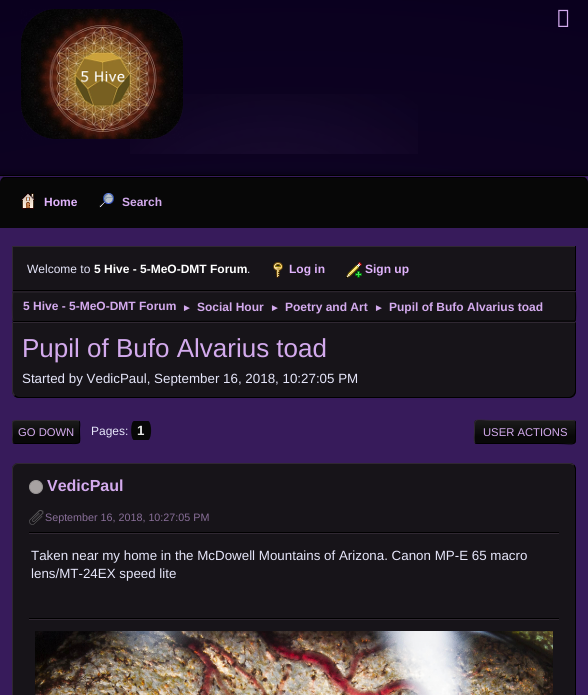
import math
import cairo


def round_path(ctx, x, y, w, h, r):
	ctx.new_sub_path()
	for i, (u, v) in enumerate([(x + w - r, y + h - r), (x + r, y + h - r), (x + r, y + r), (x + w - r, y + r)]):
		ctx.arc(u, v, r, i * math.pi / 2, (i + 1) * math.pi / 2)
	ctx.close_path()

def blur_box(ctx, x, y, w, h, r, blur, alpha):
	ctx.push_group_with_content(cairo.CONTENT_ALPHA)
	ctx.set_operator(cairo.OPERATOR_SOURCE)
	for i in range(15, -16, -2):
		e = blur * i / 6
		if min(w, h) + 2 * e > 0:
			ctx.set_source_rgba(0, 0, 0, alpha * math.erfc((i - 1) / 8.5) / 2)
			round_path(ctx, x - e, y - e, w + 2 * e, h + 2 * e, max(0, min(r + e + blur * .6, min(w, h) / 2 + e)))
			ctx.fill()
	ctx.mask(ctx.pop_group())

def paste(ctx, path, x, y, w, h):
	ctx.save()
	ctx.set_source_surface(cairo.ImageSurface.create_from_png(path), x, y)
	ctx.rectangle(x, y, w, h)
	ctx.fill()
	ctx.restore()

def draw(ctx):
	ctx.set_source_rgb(1, 1, 1)
	ctx.paint()
	gradient = cairo.RadialGradient(294, 1689, 0, 294, 1689, 1714)
	gradient.add_color_stop_rgba(0, 0.153, 0.09, 0.243, 1)
	gradient.add_color_stop_rgba(1, 0.039, 0, 0.118, 1)
	ctx.set_source(gradient)
	ctx.rectangle(0, 0, 588, 175)
	ctx.fill()
	paste(ctx, 'media/1.png', 130, 94, 288, 60)
	paste(ctx, 'media/2.png', 21, 9, 162, 131)
	paste(ctx, 'media/3.png', 558, 9, 11, 18)
	ctx.set_source_rgb(0, 0, 0)
	blur_box(ctx, -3, 172, 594, 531, 0, 2.5, 0.3)
	ctx.set_source_rgb(0.216, 0.106, 0.357)
	ctx.rectangle(0, 176, 588, 519)
	ctx.fill()
	ctx.set_source_rgb(0, 0, 0)
	ctx.rectangle(0, 175, 588, 1)
	ctx.fill()
	ctx.set_source_rgb(0.031, 0.031, 0.031)
	ctx.new_path()
	ctx.move_to(7, 176)
	ctx.line_to(581, 176)
	ctx.curve_to(585, 176, 588, 179, 588, 183)
	ctx.line_to(588, 228)
	ctx.line_to(0, 228)
	ctx.line_to(0, 183)
	ctx.curve_to(0, 179, 3, 176, 7, 176)
	ctx.close_path()
	ctx.fill()
	ctx.set_source_rgb(0, 0, 0)
	ctx.new_path()
	ctx.move_to(7, 178)
	ctx.line_to(581, 178)
	ctx.curve_to(585, 178, 588, 181, 588, 184)
	ctx.curve_to(588, 180, 585, 177, 581, 177)
	ctx.line_to(7, 177)
	ctx.curve_to(3, 177, 0, 180, 0, 184)
	ctx.curve_to(0, 181, 3, 178, 7, 178)
	ctx.close_path()
	ctx.fill()
	ctx.set_source_rgb(0.216, 0.106, 0.357)
	ctx.rectangle(4, 176, 581, 1)
	ctx.fill()
	paste(ctx, 'media/4.png', 20, 193, 16, 16)
	ctx.select_font_face('Liberation Sans', cairo.FONT_SLANT_NORMAL, cairo.FONT_WEIGHT_BOLD)
	ctx.set_font_size(12)
	ctx.set_source_rgb(0.878, 0.702, 0.988)
	ctx.move_to(44, 206)
	ctx.show_text('Home')
	paste(ctx, 'media/5.png', 99, 193, 15, 15)
	ctx.set_source_rgb(0.827, 0.667, 0.929)
	ctx.move_to(122, 206)
	ctx.show_text('Search')
	ctx.set_source_rgb(0.09, 0.082, 0.098)
	ctx.rectangle(13, 247, 562, 43)
	ctx.fill()
	ctx.set_source_rgb(0.188, 0.157, 0.196)
	ctx.rectangle(12, 246, 564, 1)
	ctx.fill()
	ctx.set_source_rgb(0, 0, 0)
	ctx.rectangle(575, 246, 1, 45)
	ctx.rectangle(12, 290, 564, 1)
	ctx.fill()
	ctx.set_source_rgb(0.188, 0.157, 0.196)
	ctx.rectangle(12, 246, 1, 45)
	ctx.fill()
	ctx.select_font_face('Liberation Sans')
	ctx.set_source_rgb(0.902, 0.902, 0.98)
	ctx.move_to(27, 273)
	ctx.show_text('Welcome to')
	ctx.select_font_face('Liberation Sans', cairo.FONT_SLANT_NORMAL, cairo.FONT_WEIGHT_BOLD)
	ctx.set_source_rgb(1, 1, 1)
	ctx.move_to(94, 273)
	ctx.show_text('5 Hive - 5-MeO-DMT Forum')
	ctx.select_font_face('Liberation Sans')
	ctx.set_source_rgb(0.902, 0.902, 0.98)
	ctx.move_to(247, 273)
	ctx.show_text('.')
	paste(ctx, 'media/6.png', 273, 262, 10, 16)
	ctx.select_font_face('Liberation Sans', cairo.FONT_SLANT_NORMAL, cairo.FONT_WEIGHT_BOLD)
	ctx.set_source_rgb(0.878, 0.702, 0.988)
	ctx.move_to(289, 273)
	ctx.show_text('Log in')
	paste(ctx, 'media/7.png', 346, 262, 16, 16)
	ctx.move_to(365, 273)
	ctx.show_text('Sign up')
	ctx.set_source_rgb(0.09, 0.082, 0.098)
	round_path(ctx, 12, 291, 564, 31, 2)
	ctx.fill()
	ctx.new_path()
	ctx.move_to(575, 292)
	ctx.curve_to(576, 293, 576, 320.5, 575, 321)
	ctx.line_to(14, 321.5)
	ctx.line_to(13, 321)
	ctx.set_source_rgb(0, 0, 0)
	ctx.set_line_width(1)
	ctx.stroke()
	ctx.new_path()
	ctx.move_to(13, 321)
	ctx.curve_to(12, 320, 12, 292.5, 13, 292)
	ctx.line_to(574, 291.5)
	ctx.line_to(575, 292)
	ctx.set_source_rgb(0.188, 0.157, 0.196)
	ctx.stroke()
	ctx.set_source_rgb(0.827, 0.667, 0.929)
	ctx.move_to(23, 310)
	ctx.show_text('5 Hive - 5-MeO-DMT Forum')
	ctx.select_font_face('Liberation Sans')
	ctx.set_font_size(10)
	ctx.move_to(182, 311)
	ctx.show_text('►')
	ctx.select_font_face('Liberation Sans', cairo.FONT_SLANT_NORMAL, cairo.FONT_WEIGHT_BOLD)
	ctx.set_font_size(12)
	ctx.move_to(197, 311)
	ctx.show_text('Social Hour')
	ctx.select_font_face('Liberation Sans')
	ctx.set_font_size(10)
	ctx.move_to(270, 311)
	ctx.show_text('►')
	ctx.select_font_face('Liberation Sans', cairo.FONT_SLANT_NORMAL, cairo.FONT_WEIGHT_BOLD)
	ctx.set_font_size(12)
	ctx.move_to(285, 311)
	ctx.show_text('Poetry and Art')
	ctx.select_font_face('Liberation Sans')
	ctx.set_font_size(10)
	ctx.move_to(374, 311)
	ctx.show_text('►')
	ctx.select_font_face('Liberation Sans', cairo.FONT_SLANT_NORMAL, cairo.FONT_WEIGHT_BOLD)
	ctx.set_font_size(12)
	ctx.move_to(389, 311)
	ctx.show_text('Pupil of Bufo Alvarius toad')
	ctx.set_source_rgb(0.09, 0.082, 0.098)
	ctx.new_path()
	ctx.move_to(12, 322)
	ctx.line_to(576, 322)
	ctx.line_to(576, 391)
	ctx.curve_to(576, 395, 573, 398, 569, 398)
	ctx.line_to(19, 398)
	ctx.curve_to(15, 398, 12, 395, 12, 391)
	ctx.close_path()
	ctx.fill()
	ctx.set_source_rgb(0.188, 0.157, 0.196)
	ctx.new_path()
	ctx.move_to(12, 322)
	ctx.line_to(13, 323)
	ctx.line_to(575, 323)
	ctx.line_to(576, 322)
	ctx.close_path()
	ctx.fill()
	ctx.set_source_rgb(0, 0, 0)
	ctx.new_path()
	ctx.move_to(576, 322)
	ctx.line_to(575, 323)
	ctx.line_to(575, 391)
	ctx.curve_to(575, 392, 574, 394, 573, 395)
	ctx.line_to(574, 396)
	ctx.curve_to(575, 395, 576, 393, 576, 391)
	ctx.close_path()
	ctx.fill()
	ctx.new_path()
	ctx.move_to(19, 398)
	ctx.line_to(569, 398)
	ctx.curve_to(571, 398, 573, 397, 574, 396)
	ctx.line_to(573, 395)
	ctx.curve_to(572, 396, 570, 397, 569, 397)
	ctx.line_to(19, 397)
	ctx.curve_to(18, 397, 16, 396, 15, 395)
	ctx.line_to(14, 396)
	ctx.curve_to(15, 397, 17, 398, 19, 398)
	ctx.close_path()
	ctx.fill()
	ctx.set_source_rgb(0.188, 0.157, 0.196)
	ctx.new_path()
	ctx.move_to(13, 323)
	ctx.line_to(12, 322)
	ctx.line_to(12, 391)
	ctx.curve_to(12, 393, 13, 395, 14, 396)
	ctx.line_to(15, 395)
	ctx.curve_to(14, 394, 13, 392, 13, 391)
	ctx.close_path()
	ctx.fill()
	ctx.select_font_face('Liberation Sans')
	ctx.set_font_size(26)
	ctx.set_source_rgb(0.827, 0.667, 0.929)
	ctx.move_to(22, 357)
	ctx.show_text('Pupil of Bufo Alvarius toad')
	ctx.set_font_size(13.35)
	ctx.set_source_rgb(0.902, 0.902, 0.98)
	ctx.move_to(22, 383)
	ctx.show_text('Started by VedicPaul, September 16, 2018, 10:27:05 PM')
	ctx.save()
	round_path(ctx, 12, 420, 68, 24, 3)
	ctx.clip()
	gradient = cairo.LinearGradient(46, 421, 46, 443)
	gradient.add_color_stop_rgba(0, 0.106, 0.106, 0.106, 1)
	gradient.add_color_stop_rgba(0.7, 0.031, 0.031, 0.031, 1)
	ctx.set_source(gradient)
	ctx.rectangle(12, 421, 68, 22)
	ctx.fill()
	ctx.restore()
	ctx.new_path()
	ctx.move_to(79, 421)
	ctx.curve_to(80.5, 423, 79.5, 427, 79.5, 429)
	ctx.curve_to(79.5, 445.5, 83, 443.5, 66.5, 443.5)
	ctx.line_to(15, 443.5)
	ctx.line_to(13, 443)
	ctx.set_source_rgb(0, 0, 0)
	ctx.stroke()
	ctx.save()
	ctx.rectangle(12, 413, 564, 38)
	ctx.clip()
	ctx.new_path()
	ctx.move_to(13, 443)
	ctx.curve_to(11.5, 441, 12.5, 437, 12.5, 435)
	ctx.curve_to(12.5, 418.5, 9, 420.5, 25.5, 420.5)
	ctx.line_to(77, 420.5)
	ctx.line_to(79, 421)
	ctx.set_source_rgb(0.188, 0.157, 0.196)
	ctx.stroke()
	ctx.restore()
	ctx.set_font_size(11.25)
	ctx.set_source_rgb(0.827, 0.667, 0.929)
	ctx.move_to(18, 436)
	ctx.show_text('GO DOWN')
	ctx.set_font_size(12)
	ctx.set_source_rgb(0.902, 0.902, 0.98)
	ctx.move_to(91, 435)
	ctx.show_text('Pages:')
	ctx.set_source_rgb(0.031, 0.031, 0.031)
	ctx.rectangle(137, 421, 8, 19)
	ctx.fill()
	ctx.select_font_face('Liberation Sans', cairo.FONT_SLANT_NORMAL, cairo.FONT_WEIGHT_BOLD)
	ctx.set_font_size(13.35)
	ctx.set_source_rgb(0.902, 0.902, 0.902)
	ctx.move_to(137, 435)
	ctx.show_text('1')
	ctx.set_source_rgb(0.031, 0.031, 0.031)
	ctx.new_path()
	ctx.move_to(134, 421)
	ctx.line_to(137, 421)
	ctx.line_to(137, 440)
	ctx.line_to(133.5, 440)
	ctx.curve_to(130, 437.5, 130.5, 421, 134, 421)
	ctx.close_path()
	ctx.fill()
	ctx.new_path()
	ctx.move_to(145, 421)
	ctx.line_to(148.5, 421)
	ctx.curve_to(152, 423.5, 152, 437.5, 148.5, 440)
	ctx.line_to(145, 440)
	ctx.close_path()
	ctx.fill()
	ctx.save()
	round_path(ctx, 474, 420, 102, 24, 3)
	ctx.clip()
	gradient = cairo.LinearGradient(525, 399, 525, 421)
	gradient.add_color_stop_rgba(0, 0.106, 0.106, 0.106, 1)
	gradient.add_color_stop_rgba(0.7, 0.031, 0.031, 0.031, 1)
	ctx.set_source(gradient)
	ctx.rectangle(474, 420, 102, 1)
	ctx.fill()
	gradient = cairo.LinearGradient(525, 421, 525, 443)
	gradient.add_color_stop_rgba(0, 0.106, 0.106, 0.106, 1)
	gradient.add_color_stop_rgba(0.7, 0.031, 0.031, 0.031, 1)
	ctx.set_source(gradient)
	ctx.rectangle(474, 421, 102, 22)
	ctx.fill()
	gradient = cairo.LinearGradient(525, 443, 525, 465)
	gradient.add_color_stop_rgba(0, 0.106, 0.106, 0.106, 1)
	gradient.add_color_stop_rgba(0.7, 0.031, 0.031, 0.031, 1)
	ctx.set_source(gradient)
	ctx.rectangle(474, 443, 102, 1)
	ctx.fill()
	ctx.restore()
	ctx.save()
	ctx.rectangle(12, 413, 564, 38)
	ctx.clip()
	ctx.new_path()
	ctx.move_to(575, 421)
	ctx.curve_to(576.5, 423, 575.5, 430, 575.5, 432)
	ctx.curve_to(575.5, 447.5, 576.5, 443.5, 557, 443.5)
	ctx.line_to(477, 443.5)
	ctx.line_to(475, 443)
	ctx.set_source_rgb(0, 0, 0)
	ctx.stroke()
	ctx.restore()
	ctx.new_path()
	ctx.move_to(475, 443)
	ctx.curve_to(473.5, 441, 474.5, 434, 474.5, 432)
	ctx.curve_to(474.5, 416.5, 473.5, 420.5, 493, 420.5)
	ctx.line_to(573, 420.5)
	ctx.line_to(575, 421)
	ctx.set_source_rgb(0.188, 0.157, 0.196)
	ctx.stroke()
	ctx.select_font_face('Liberation Sans')
	ctx.set_font_size(11.25)
	ctx.set_source_rgb(0.827, 0.667, 0.929)
	ctx.move_to(483, 436)
	ctx.show_text('USER ACTIONS')
	ctx.set_source_rgb(0.09, 0.082, 0.098)
	round_path(ctx, 12, 463, 564, 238, 6)
	ctx.fill()
	ctx.new_path()
	ctx.move_to(574, 465)
	ctx.line_to(575.5, 468.5)
	ctx.line_to(575.5, 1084)
	ctx.curve_to(575.5, 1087, 573, 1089.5, 570, 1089.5)
	ctx.line_to(17.5, 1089.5)
	ctx.line_to(14, 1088)
	ctx.set_source_rgb(0, 0, 0)
	ctx.stroke()
	ctx.new_path()
	ctx.move_to(14, 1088)
	ctx.line_to(12.5, 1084.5)
	ctx.line_to(12.5, 469)
	ctx.curve_to(12.5, 466, 15, 463.5, 18, 463.5)
	ctx.line_to(570.5, 463.5)
	ctx.line_to(574, 465)
	ctx.set_source_rgb(0.188, 0.157, 0.196)
	ctx.stroke()
	ctx.set_source_rgb(0.655, 0.635, 0.635)
	ctx.arc(36, 487, 6.5, 0, 2 * math.pi)
	ctx.fill_preserve()
	ctx.set_source_rgb(0.588, 0.573, 0.573)
	ctx.stroke()
	ctx.select_font_face('Liberation Sans', cairo.FONT_SLANT_NORMAL, cairo.FONT_WEIGHT_BOLD)
	ctx.set_font_size(16)
	ctx.set_source_rgb(0.827, 0.667, 0.929)
	ctx.move_to(47, 491)
	ctx.show_text('VedicPaul')
	paste(ctx, 'media/8.png', 29, 510, 15, 15)
	ctx.select_font_face('Liberation Sans')
	ctx.set_font_size(10.75)
	ctx.set_source_rgb(0.533, 0.431, 0.596)
	ctx.move_to(45, 521)
	ctx.show_text('September 16, 2018, 10:27:05 PM')
	ctx.set_source_rgb(0.188, 0.157, 0.196)
	ctx.rectangle(29, 533, 530, 1)
	ctx.fill()
	ctx.set_source_rgb(0, 0, 0)
	ctx.rectangle(29, 532, 530, 1)
	ctx.fill()
	ctx.set_font_size(13.35)
	ctx.set_source_rgb(0.902, 0.902, 0.98)
	ctx.move_to(31, 560)
	ctx.show_text('Taken near my home in the McDowell Mountains of Arizona. Canon MP-E 65 macro')
	ctx.move_to(31, 578)
	ctx.show_text('lens/MT-24EX speed lite')
	ctx.set_source_rgb(0.188, 0.157, 0.196)
	ctx.rectangle(29, 619, 530, 1)
	ctx.fill()
	ctx.set_source_rgb(0, 0, 0)
	ctx.rectangle(29, 618, 530, 1)
	ctx.fill()
	paste(ctx, 'media/9.png', 35, 631, 518, 64)


surface = cairo.ImageSurface(cairo.FORMAT_RGB24, 588, 695)
ctx = cairo.Context(surface)
options = cairo.FontOptions()
options.set_hint_metrics(cairo.HINT_METRICS_OFF)
options.set_hint_style(cairo.HINT_STYLE_NONE)
ctx.set_font_options(options)
ctx.set_miter_limit(4)
draw(ctx)
surface.write_to_png('image.png')
